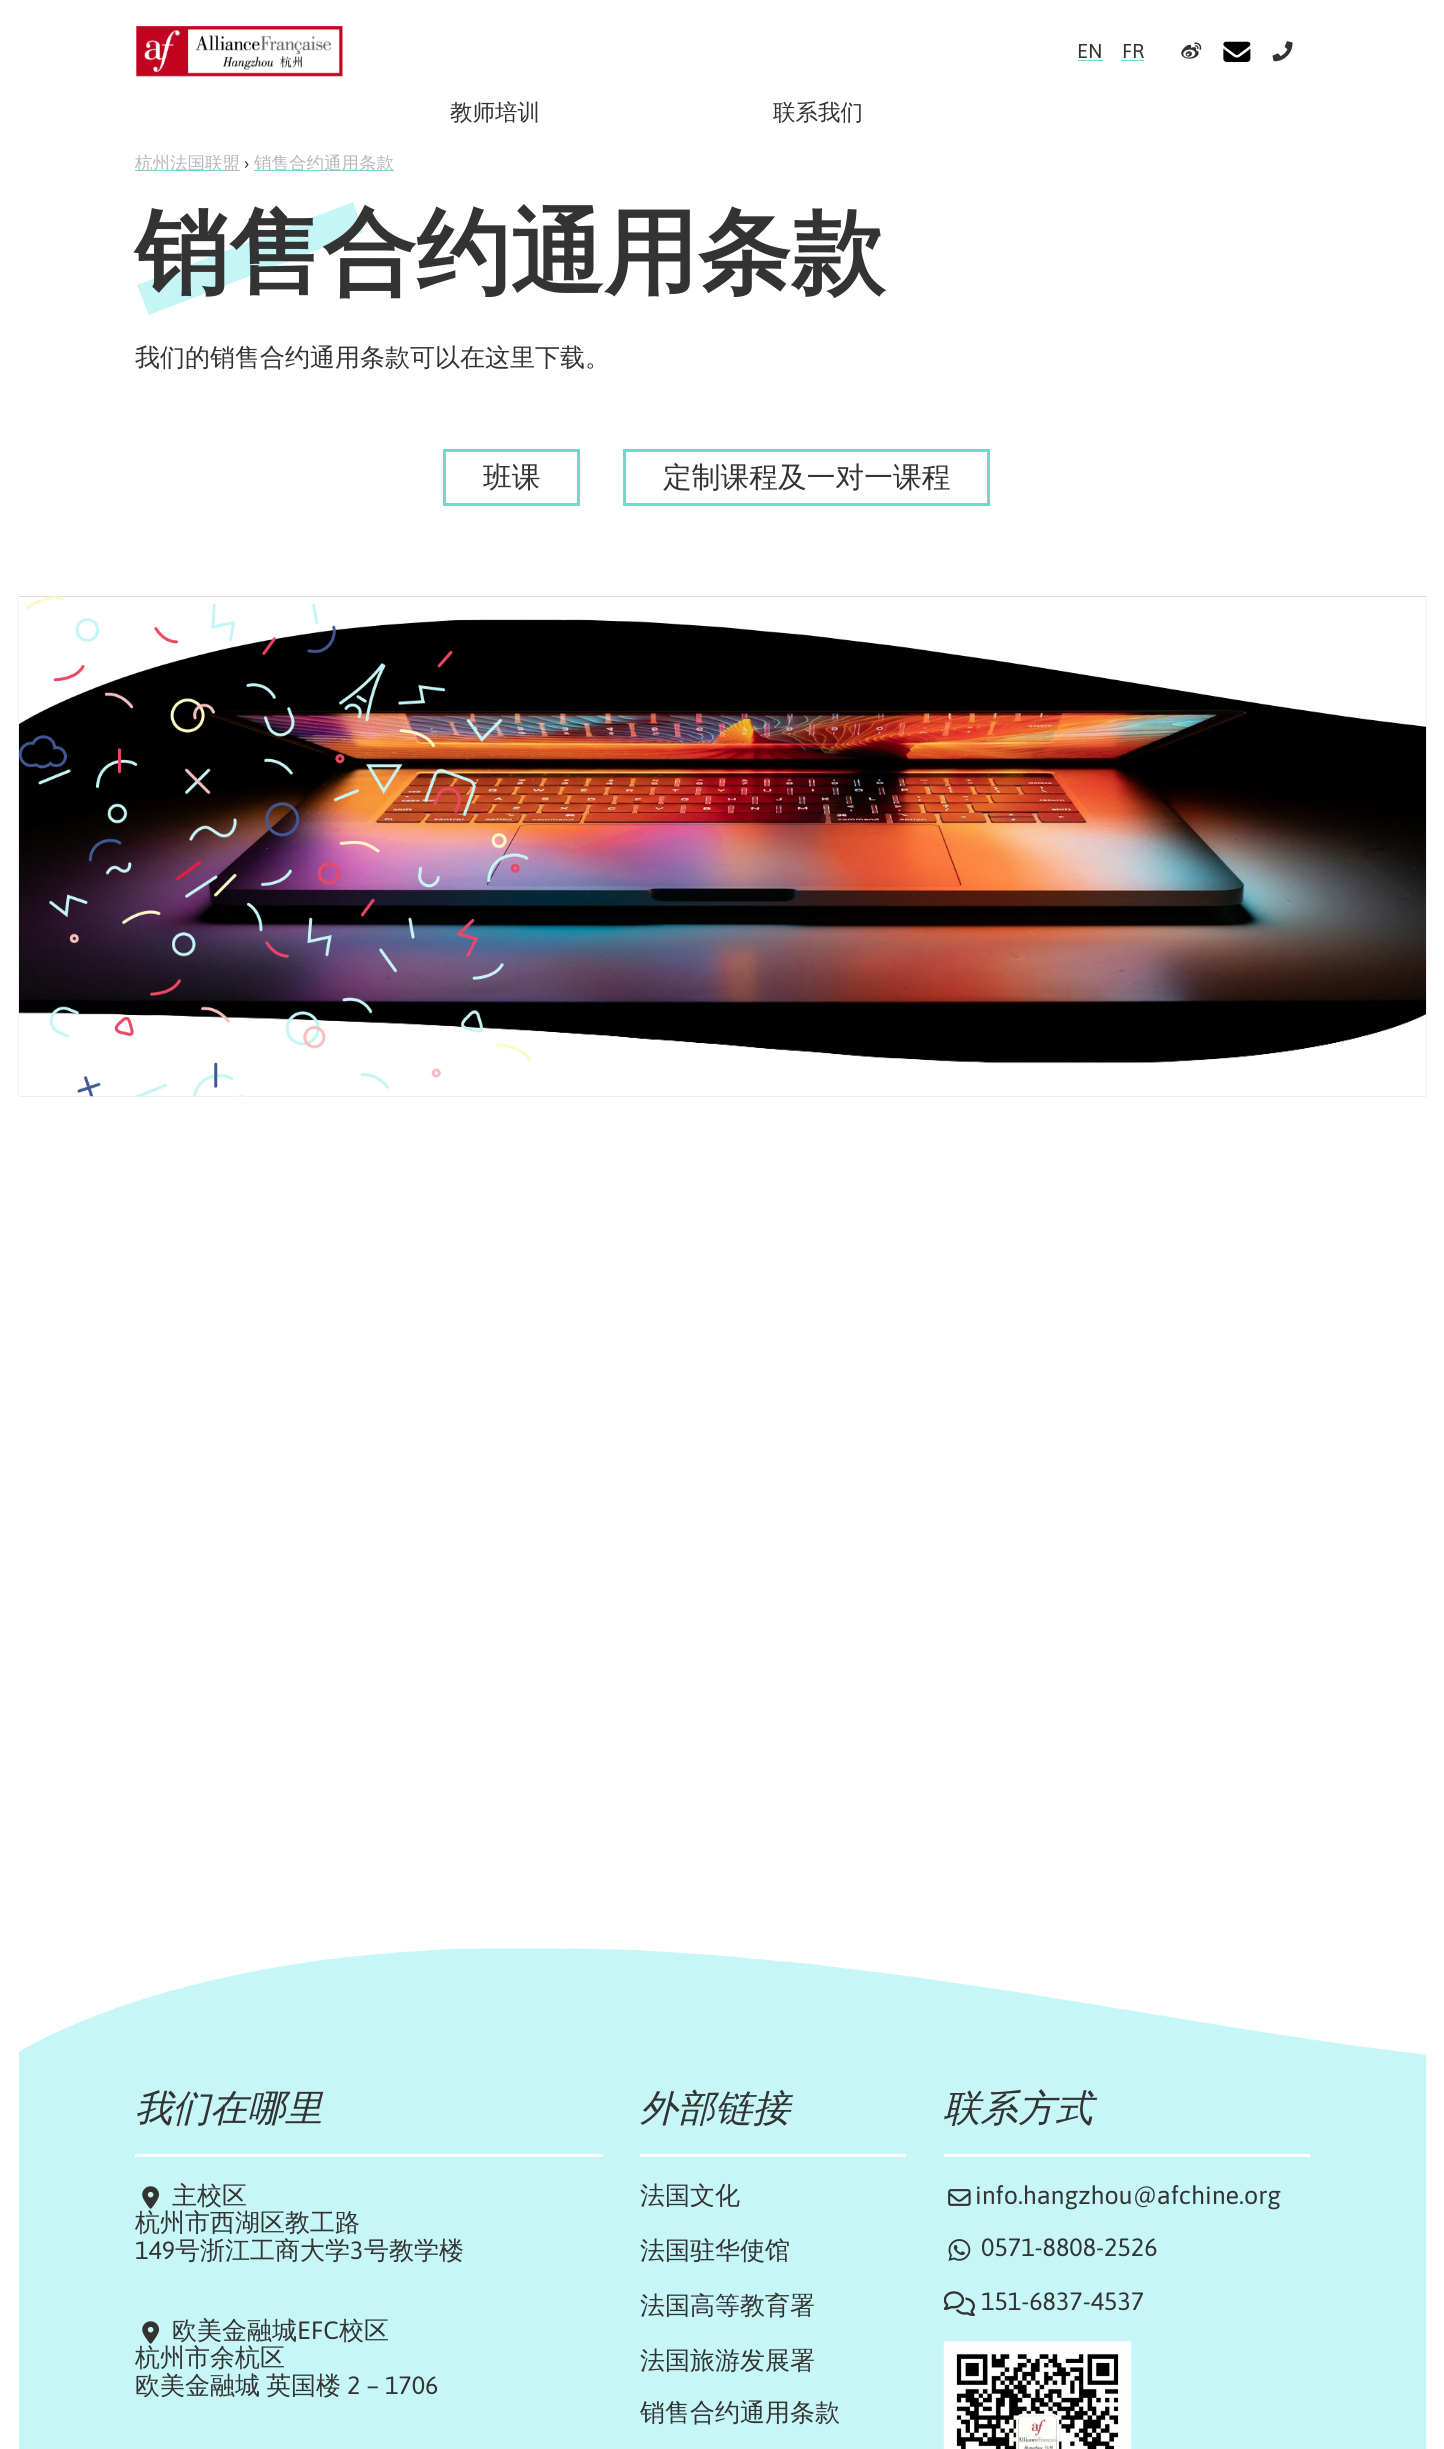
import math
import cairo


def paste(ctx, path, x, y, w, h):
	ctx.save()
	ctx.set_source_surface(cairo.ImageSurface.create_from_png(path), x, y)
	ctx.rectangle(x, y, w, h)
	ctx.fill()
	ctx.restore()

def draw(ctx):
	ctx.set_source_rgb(1, 1, 1)
	ctx.paint()
	paste(ctx, 'media/1.png', 136, 26, 207, 51)
	ctx.select_font_face('Asap')
	ctx.set_font_size(20)
	ctx.set_source_rgb(0.2, 0.2, 0.2)
	ctx.move_to(1077, 58)
	ctx.show_text('EN')
	ctx.set_source_rgb(0.459, 0.843, 0.8)
	ctx.rectangle(1078, 60, 25, 1)
	ctx.fill()
	ctx.set_source_rgb(0.2, 0.2, 0.2)
	ctx.move_to(1122, 58)
	ctx.show_text('FR')
	ctx.set_source_rgb(0.459, 0.843, 0.8)
	ctx.rectangle(1121, 60, 23, 1)
	ctx.fill()
	paste(ctx, 'media/2.png', 1181, 42, 21, 17)
	paste(ctx, 'media/3.png', 1223, 41, 28, 21)
	paste(ctx, 'media/4.png', 1272, 41, 21, 21)
	ctx.select_font_face('WenQuanYi Zen Hei Medium')
	ctx.set_font_size(22.5)
	ctx.set_source_rgb(0.2, 0.2, 0.2)
	ctx.move_to(450, 120)
	ctx.show_text('教师培训')
	ctx.move_to(773, 120)
	ctx.show_text('联系我们')
	ctx.set_source_rgb(0.459, 0.843, 0.8)
	ctx.rectangle(135, 170, 105, 1)
	ctx.fill()
	ctx.set_font_size(17.5)
	ctx.set_source_rgb(0.718, 0.718, 0.718)
	ctx.move_to(135, 169)
	ctx.show_text('杭州法国联盟')
	ctx.select_font_face('Asap')
	ctx.set_source_rgb(0.2, 0.2, 0.2)
	ctx.move_to(244, 169)
	ctx.show_text('›')
	ctx.set_source_rgb(0.459, 0.843, 0.8)
	ctx.rectangle(254, 170, 140, 1)
	ctx.fill()
	ctx.select_font_face('WenQuanYi Zen Hei Medium')
	ctx.set_source_rgb(0.718, 0.718, 0.718)
	ctx.move_to(254, 169)
	ctx.show_text('销售合约通用条款')
	ctx.set_source_rgb(0.769, 0.961, 0.961)
	ctx.new_path()
	ctx.move_to(137, 285)
	ctx.line_to(353, 202)
	ctx.line_to(364, 232)
	ctx.line_to(149, 315)
	ctx.close_path()
	ctx.fill()
	ctx.select_font_face('WenQuanYi Zen Hei', cairo.FONT_SLANT_NORMAL, cairo.FONT_WEIGHT_BOLD)
	ctx.set_font_size(93.75)
	ctx.set_source_rgb(0.2, 0.2, 0.2)
	ctx.move_to(135, 285)
	ctx.show_text('销售合约通用条款')
	ctx.select_font_face('WenQuanYi Zen Hei Medium')
	ctx.set_font_size(25)
	ctx.move_to(135, 366)
	ctx.show_text('我们的销售合约通用条款可以在这里下载。')
	ctx.rectangle(444.5, 450.5, 134, 54)
	ctx.set_source_rgb(0.459, 0.843, 0.8)
	ctx.set_line_width(3)
	ctx.stroke()
	ctx.set_font_size(28.75)
	ctx.set_source_rgb(0.2, 0.2, 0.2)
	ctx.move_to(483, 487)
	ctx.show_text('班课')
	ctx.rectangle(624.5, 450.5, 364, 54)
	ctx.set_source_rgb(0.459, 0.843, 0.8)
	ctx.stroke()
	ctx.set_source_rgb(0.2, 0.2, 0.2)
	ctx.move_to(663, 487)
	ctx.show_text('定制课程及一对一课程')
	paste(ctx, 'media/5.png', 18, 596, 1409, 501)
	paste(ctx, 'media/6.png', 18, 596, 1409, 131)
	paste(ctx, 'media/8.png', 18, 1012, 1409, 84)
	paste(ctx, 'media/7.png', 18, 596, 514, 501)
	ctx.set_source_rgb(0.776, 0.961, 0.961)
	ctx.rectangle(19, 1948, 1407, 501)
	ctx.fill()
	paste(ctx, 'media/9.png', 19, 1925, 1407, 130)
	ctx.select_font_face('WenQuanYi Zen Hei Medium', cairo.FONT_SLANT_ITALIC)
	ctx.set_font_size(37.5)
	ctx.set_source_rgb(0.2, 0.2, 0.2)
	ctx.move_to(135, 2121)
	ctx.show_text('我们在哪里')
	ctx.set_source_rgb(1, 1, 1)
	ctx.rectangle(135, 2154, 468, 3)
	ctx.fill()
	paste(ctx, 'media/10.png', 142, 2186, 18, 23)
	ctx.select_font_face('WenQuanYi Zen Hei Medium')
	ctx.set_font_size(25)
	ctx.set_source_rgb(0.2, 0.2, 0.2)
	ctx.move_to(172, 2204)
	ctx.show_text('主校区')
	ctx.move_to(135, 2231)
	ctx.show_text('杭州市西湖区教工路')
	ctx.select_font_face('Asap')
	ctx.move_to(135, 2259)
	ctx.show_text('149')
	ctx.select_font_face('WenQuanYi Zen Hei Medium')
	ctx.move_to(175, 2259)
	ctx.show_text('号浙江工商大学')
	ctx.select_font_face('Asap')
	ctx.move_to(350, 2259)
	ctx.show_text('3')
	ctx.select_font_face('WenQuanYi Zen Hei Medium')
	ctx.move_to(364, 2259)
	ctx.show_text('号教学楼')
	paste(ctx, 'media/10.png', 142, 2321, 18, 23)
	ctx.move_to(172, 2339)
	ctx.show_text('欧美金融城')
	ctx.select_font_face('Asap')
	ctx.move_to(297, 2339)
	ctx.show_text('EFC')
	ctx.select_font_face('WenQuanYi Zen Hei Medium')
	for x, y, s in [
		(339, 2339, '校区'),
		(135, 2366, '杭州市余杭区'),
		(135, 2394, '欧美金融城'),
		(266, 2394, '英国楼'),
	]:
		ctx.move_to(x, y)
		ctx.show_text(s)
	ctx.select_font_face('Asap')
	ctx.move_to(347, 2394)
	ctx.show_text('2 – 1706')
	ctx.select_font_face('WenQuanYi Zen Hei Medium', cairo.FONT_SLANT_ITALIC)
	ctx.set_font_size(37.5)
	ctx.move_to(640, 2121)
	ctx.show_text('外部链接')
	ctx.set_source_rgb(1, 1, 1)
	ctx.rectangle(640, 2154, 266, 3)
	ctx.fill()
	ctx.select_font_face('WenQuanYi Zen Hei Medium')
	ctx.set_font_size(25)
	ctx.set_source_rgb(0.2, 0.2, 0.2)
	for x, y, s in [
		(640, 2204, '法国文化'),
		(640, 2259, '法国驻华使馆'),
		(640, 2314, '法国高等教育署'),
		(640, 2369, '法国旅游发展署'),
		(640, 2421, '销售合约通用条款'),
	]:
		ctx.move_to(x, y)
		ctx.show_text(s)
	ctx.select_font_face('WenQuanYi Zen Hei Medium', cairo.FONT_SLANT_ITALIC)
	ctx.set_font_size(37.5)
	ctx.move_to(943, 2121)
	ctx.show_text('联系方式')
	ctx.set_source_rgb(1, 1, 1)
	ctx.rectangle(944, 2154, 366, 3)
	ctx.fill()
	paste(ctx, 'media/11.png', 948, 2189, 23, 17)
	ctx.select_font_face('Asap')
	ctx.set_font_size(25)
	ctx.set_source_rgb(0.2, 0.2, 0.2)
	ctx.move_to(975, 2204)
	ctx.show_text('info.hangzhou@afchine.org')
	paste(ctx, 'media/12.png', 948, 2239, 23, 22)
	ctx.move_to(981, 2256)
	ctx.show_text('0571-8808-2526')
	paste(ctx, 'media/13.png', 944, 2291, 31, 25)
	ctx.move_to(981, 2310)
	ctx.show_text('151-6837-4537')
	paste(ctx, 'media/14.png', 943, 2341, 189, 108)


surface = cairo.ImageSurface(cairo.FORMAT_RGB24, 1444, 2449)
ctx = cairo.Context(surface)
options = cairo.FontOptions()
options.set_hint_metrics(cairo.HINT_METRICS_OFF)
options.set_hint_style(cairo.HINT_STYLE_NONE)
ctx.set_font_options(options)
ctx.set_miter_limit(4)
draw(ctx)
surface.write_to_png('image.png')
